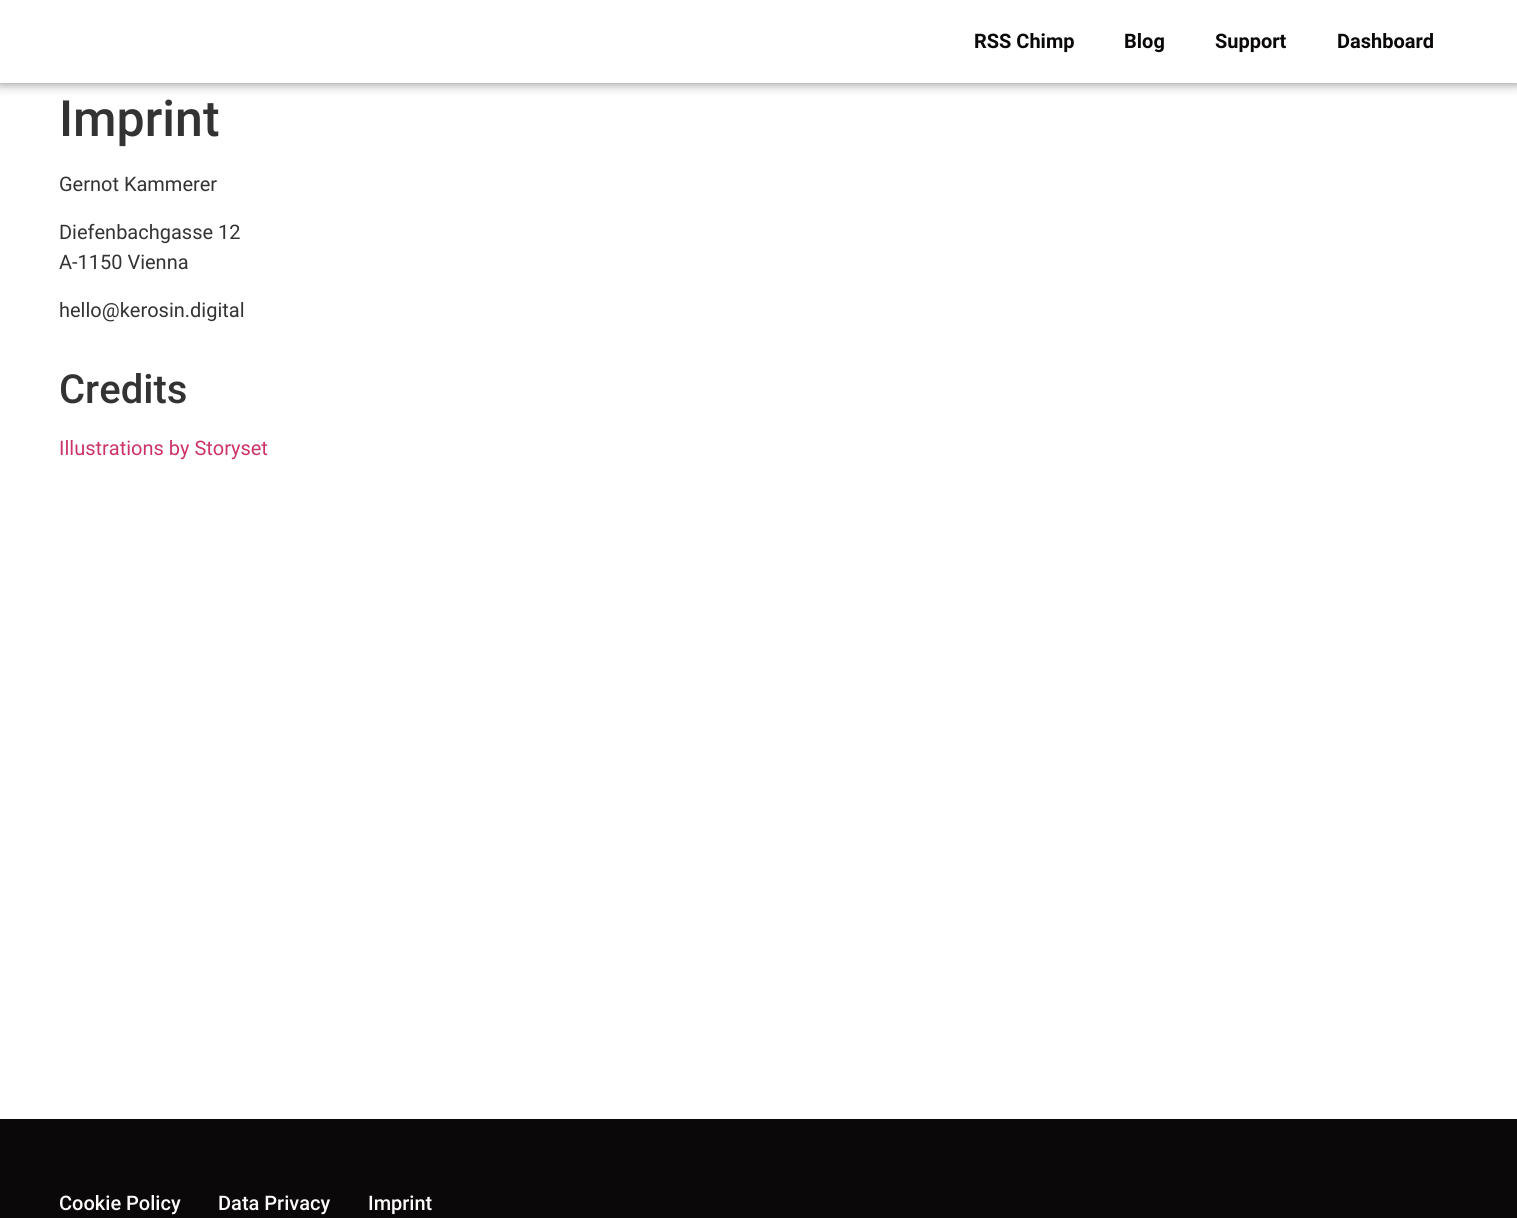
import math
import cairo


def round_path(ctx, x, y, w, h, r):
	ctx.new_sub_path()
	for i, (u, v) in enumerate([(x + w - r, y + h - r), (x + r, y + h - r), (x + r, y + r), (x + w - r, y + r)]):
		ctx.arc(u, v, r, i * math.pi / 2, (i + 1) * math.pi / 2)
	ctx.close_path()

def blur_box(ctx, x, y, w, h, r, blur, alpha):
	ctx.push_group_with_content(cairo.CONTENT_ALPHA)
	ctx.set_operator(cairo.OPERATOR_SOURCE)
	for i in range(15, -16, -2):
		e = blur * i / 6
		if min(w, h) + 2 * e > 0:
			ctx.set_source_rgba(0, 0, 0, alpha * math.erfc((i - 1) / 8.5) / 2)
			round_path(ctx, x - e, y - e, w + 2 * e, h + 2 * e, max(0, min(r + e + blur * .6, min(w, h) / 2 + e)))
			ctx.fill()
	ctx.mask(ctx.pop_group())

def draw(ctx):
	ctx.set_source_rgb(1, 1, 1)
	ctx.paint()
	ctx.set_source_rgb(0, 0, 0)
	blur_box(ctx, 0, 0, 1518, 83, 0, 6, 0.5)
	ctx.set_source_rgb(1, 1, 1)
	ctx.rectangle(0, 0, 1517, 83)
	ctx.fill()
	ctx.select_font_face('Roboto', cairo.FONT_SLANT_NORMAL, cairo.FONT_WEIGHT_BOLD)
	ctx.set_font_size(20)
	ctx.set_source_rgb(0.043, 0.035, 0.039)
	for x, y, s in [
		(974, 48, 'RSS Chimp'),
		(1124, 48, 'Blog'),
		(1215, 48, 'Support'),
		(1337, 48, 'Dashboard'),
	]:
		ctx.move_to(x, y)
		ctx.show_text(s)
	ctx.select_font_face('Roboto Medium')
	ctx.set_font_size(50)
	ctx.set_source_rgb(0.2, 0.2, 0.2)
	ctx.move_to(59, 136)
	ctx.show_text('Imprint')
	ctx.select_font_face('Roboto')
	ctx.set_font_size(20)
	for x, y, s in [
		(59, 191, 'Gernot Kammerer'),
		(59, 239, 'Diefenbachgasse 12'),
		(59, 269, 'A-1150 Vienna'),
		(59, 317, 'hello@kerosin.digital'),
	]:
		ctx.move_to(x, y)
		ctx.show_text(s)
	ctx.select_font_face('Roboto Medium')
	ctx.set_font_size(40)
	ctx.move_to(59, 403)
	ctx.show_text('Credits')
	ctx.select_font_face('Roboto')
	ctx.set_font_size(20)
	ctx.set_source_rgb(0.8, 0.2, 0.4)
	ctx.move_to(59, 455)
	ctx.show_text('Illustrations by Storyset')
	ctx.set_source_rgb(0.043, 0.035, 0.039)
	ctx.rectangle(0, 1119, 1517, 99)
	ctx.fill()
	ctx.select_font_face('Roboto Medium')
	ctx.set_source_rgb(1, 0.984, 0.984)
	for x, y, s in [
		(59, 1210, 'Cookie Policy'),
		(218, 1210, 'Data Privacy'),
		(368, 1210, 'Imprint'),
	]:
		ctx.move_to(x, y)
		ctx.show_text(s)


surface = cairo.ImageSurface(cairo.FORMAT_RGB24, 1517, 1218)
ctx = cairo.Context(surface)
options = cairo.FontOptions()
options.set_hint_metrics(cairo.HINT_METRICS_OFF)
options.set_hint_style(cairo.HINT_STYLE_NONE)
ctx.set_font_options(options)
ctx.set_miter_limit(4)
draw(ctx)
surface.write_to_png('image.png')
